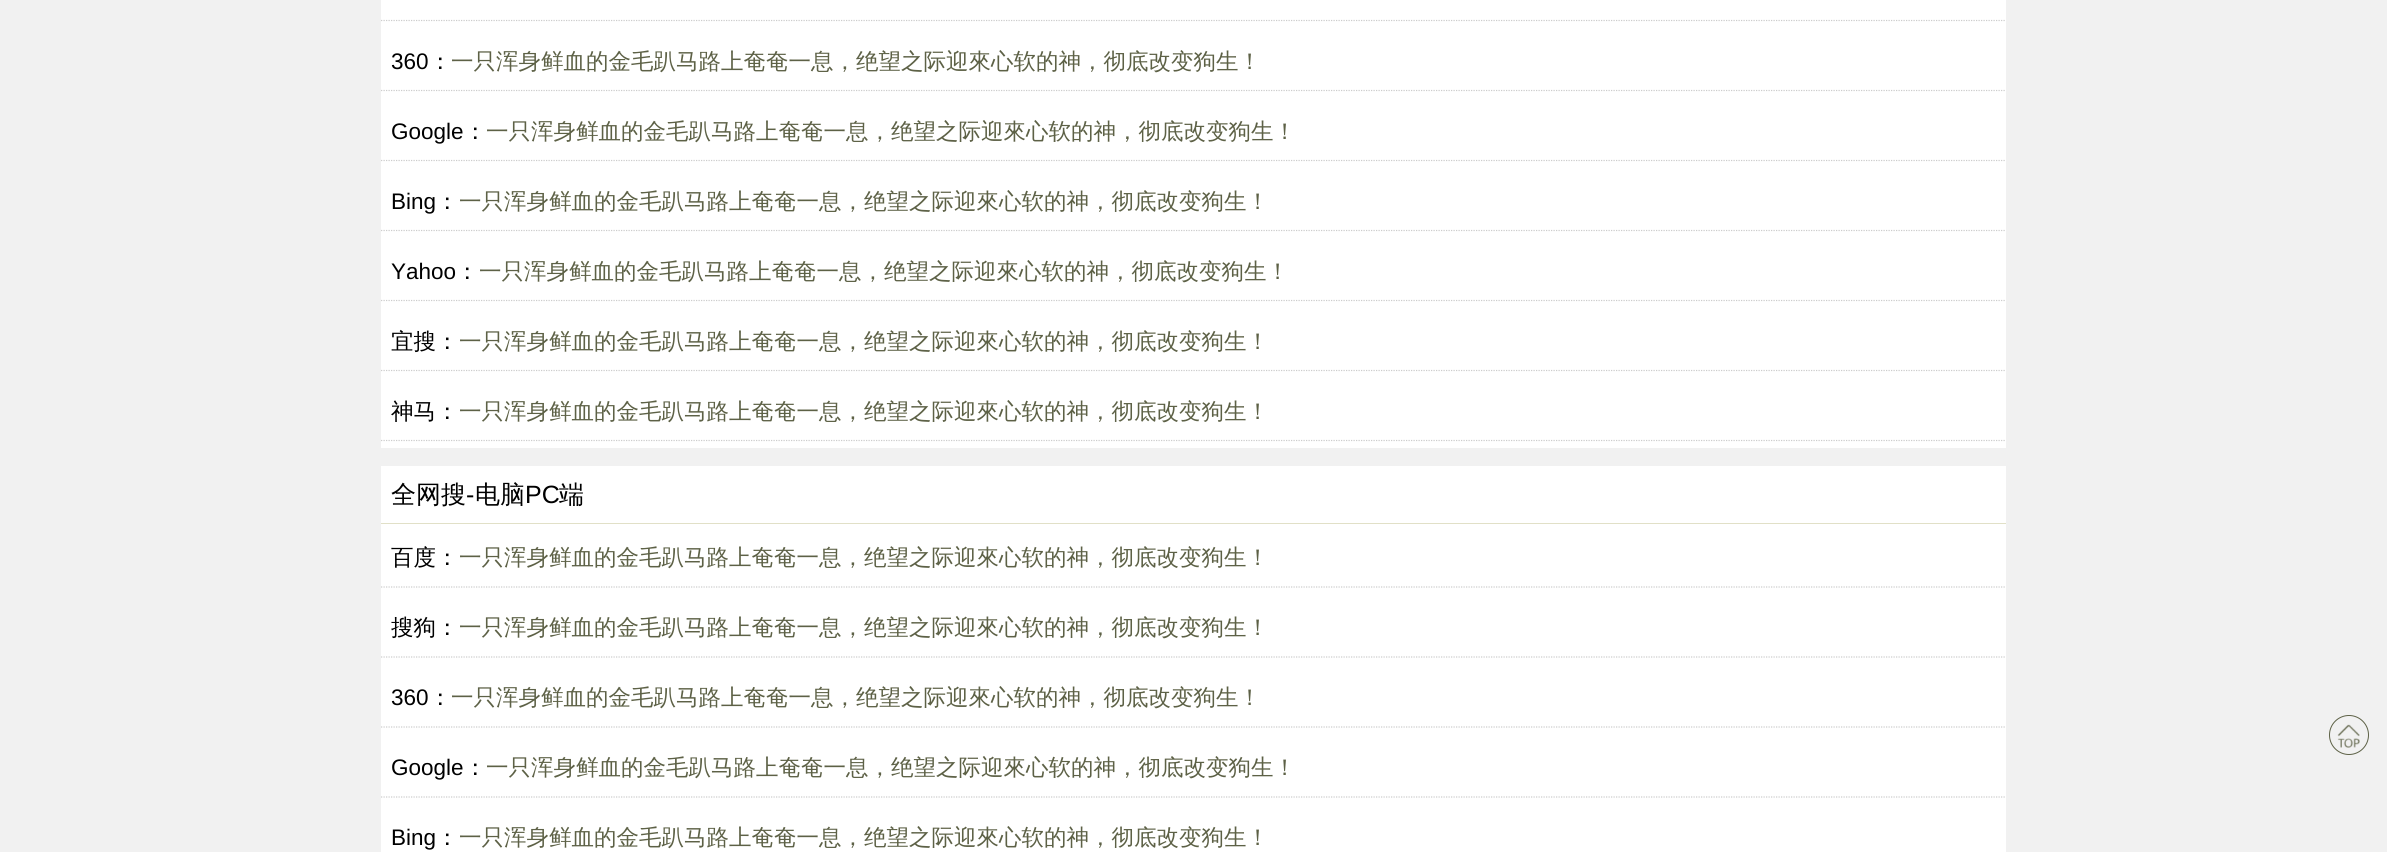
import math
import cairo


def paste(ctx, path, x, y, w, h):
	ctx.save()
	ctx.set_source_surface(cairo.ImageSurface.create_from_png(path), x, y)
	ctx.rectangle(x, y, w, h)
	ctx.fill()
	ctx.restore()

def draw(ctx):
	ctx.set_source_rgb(0.945, 0.945, 0.945)
	ctx.paint()
	ctx.set_source_rgb(1, 1, 1)
	ctx.rectangle(381, 0, 1625, 448)
	ctx.fill()
	ctx.new_path()
	ctx.move_to(381, 20.5)
	ctx.line_to(2006, 20.5)
	ctx.set_source_rgb(0.8, 0.8, 0.8)
	ctx.set_line_width(1.2)
	ctx.set_dash([1.25, 1.25])
	ctx.stroke()
	ctx.new_path()
	ctx.move_to(381, 90.5)
	ctx.line_to(2006, 90.5)
	ctx.stroke()
	ctx.select_font_face('Liberation Sans')
	ctx.set_font_size(22.5)
	ctx.set_source_rgb(0, 0, 0)
	ctx.move_to(391, 69)
	ctx.show_text('360')
	ctx.select_font_face('WenQuanYi Zen Hei Medium')
	ctx.move_to(429, 69)
	ctx.show_text('：')
	ctx.set_source_rgb(0.365, 0.38, 0.275)
	ctx.move_to(451, 69)
	ctx.show_text('一只浑身鲜血的金毛趴马路上奄奄一息，绝望之际迎來心软的神，彻底改变狗生！')
	ctx.new_path()
	ctx.move_to(381, 160.5)
	ctx.line_to(2006, 160.5)
	ctx.set_source_rgb(0.8, 0.8, 0.8)
	ctx.stroke()
	ctx.select_font_face('Liberation Sans')
	ctx.set_source_rgb(0, 0, 0)
	ctx.move_to(391, 139)
	ctx.show_text('Google')
	ctx.select_font_face('WenQuanYi Zen Hei Medium')
	ctx.move_to(464, 139)
	ctx.show_text('：')
	ctx.set_source_rgb(0.365, 0.38, 0.275)
	ctx.move_to(486, 139)
	ctx.show_text('一只浑身鲜血的金毛趴马路上奄奄一息，绝望之际迎來心软的神，彻底改变狗生！')
	ctx.new_path()
	ctx.move_to(381, 230.5)
	ctx.line_to(2006, 230.5)
	ctx.set_source_rgb(0.8, 0.8, 0.8)
	ctx.stroke()
	ctx.select_font_face('Liberation Sans')
	ctx.set_source_rgb(0, 0, 0)
	ctx.move_to(391, 209)
	ctx.show_text('Bing')
	ctx.select_font_face('WenQuanYi Zen Hei Medium')
	ctx.move_to(436, 209)
	ctx.show_text('：')
	ctx.set_source_rgb(0.365, 0.38, 0.275)
	ctx.move_to(459, 209)
	ctx.show_text('一只浑身鲜血的金毛趴马路上奄奄一息，绝望之际迎來心软的神，彻底改变狗生！')
	ctx.new_path()
	ctx.move_to(381, 300.5)
	ctx.line_to(2006, 300.5)
	ctx.set_source_rgb(0.8, 0.8, 0.8)
	ctx.stroke()
	ctx.select_font_face('Liberation Sans')
	ctx.set_source_rgb(0, 0, 0)
	ctx.move_to(391, 279)
	ctx.show_text('Yahoo')
	ctx.select_font_face('WenQuanYi Zen Hei Medium')
	ctx.move_to(456, 279)
	ctx.show_text('：')
	ctx.set_source_rgb(0.365, 0.38, 0.275)
	ctx.move_to(479, 279)
	ctx.show_text('一只浑身鲜血的金毛趴马路上奄奄一息，绝望之际迎來心软的神，彻底改变狗生！')
	ctx.new_path()
	ctx.move_to(381, 370.5)
	ctx.line_to(2006, 370.5)
	ctx.set_source_rgb(0.8, 0.8, 0.8)
	ctx.stroke()
	ctx.set_source_rgb(0, 0, 0)
	ctx.move_to(391, 349)
	ctx.show_text('宜搜：')
	ctx.set_source_rgb(0.365, 0.38, 0.275)
	ctx.move_to(459, 349)
	ctx.show_text('一只浑身鲜血的金毛趴马路上奄奄一息，绝望之际迎來心软的神，彻底改变狗生！')
	ctx.new_path()
	ctx.move_to(381, 440.5)
	ctx.line_to(2006, 440.5)
	ctx.set_source_rgb(0.8, 0.8, 0.8)
	ctx.stroke()
	ctx.set_source_rgb(0, 0, 0)
	ctx.move_to(391, 419)
	ctx.show_text('神马：')
	ctx.set_source_rgb(0.365, 0.38, 0.275)
	ctx.move_to(459, 419)
	ctx.show_text('一只浑身鲜血的金毛趴马路上奄奄一息，绝望之际迎來心软的神，彻底改变狗生！')
	ctx.set_source_rgb(1, 1, 1)
	ctx.rectangle(381, 466, 1625, 386)
	ctx.fill()
	ctx.set_source_rgb(0.882, 0.878, 0.78)
	ctx.rectangle(381, 523, 1625, 1)
	ctx.fill()
	ctx.set_font_size(25)
	ctx.set_source_rgb(0, 0, 0)
	ctx.move_to(391, 503)
	ctx.show_text('全网搜')
	ctx.select_font_face('Liberation Sans')
	ctx.move_to(466, 503)
	ctx.show_text('-')
	ctx.select_font_face('WenQuanYi Zen Hei Medium')
	ctx.move_to(475, 503)
	ctx.show_text('电脑')
	ctx.select_font_face('Liberation Sans')
	ctx.move_to(525, 503)
	ctx.show_text('PC')
	ctx.select_font_face('WenQuanYi Zen Hei Medium')
	ctx.move_to(559, 503)
	ctx.show_text('端')
	ctx.new_path()
	ctx.move_to(381, 587)
	ctx.line_to(2006, 587)
	ctx.set_source_rgb(0.8, 0.8, 0.8)
	ctx.stroke()
	ctx.set_font_size(22.5)
	ctx.set_source_rgb(0, 0, 0)
	ctx.move_to(391, 565)
	ctx.show_text('百度：')
	ctx.set_source_rgb(0.365, 0.38, 0.275)
	ctx.move_to(459, 565)
	ctx.show_text('一只浑身鲜血的金毛趴马路上奄奄一息，绝望之际迎來心软的神，彻底改变狗生！')
	ctx.new_path()
	ctx.move_to(381, 657)
	ctx.line_to(2006, 657)
	ctx.set_source_rgb(0.8, 0.8, 0.8)
	ctx.stroke()
	ctx.set_source_rgb(0, 0, 0)
	ctx.move_to(391, 635)
	ctx.show_text('搜狗：')
	ctx.set_source_rgb(0.365, 0.38, 0.275)
	ctx.move_to(459, 635)
	ctx.show_text('一只浑身鲜血的金毛趴马路上奄奄一息，绝望之际迎來心软的神，彻底改变狗生！')
	ctx.new_path()
	ctx.move_to(381, 727)
	ctx.line_to(2006, 727)
	ctx.set_source_rgb(0.8, 0.8, 0.8)
	ctx.stroke()
	ctx.select_font_face('Liberation Sans')
	ctx.set_source_rgb(0, 0, 0)
	ctx.move_to(391, 705)
	ctx.show_text('360')
	ctx.select_font_face('WenQuanYi Zen Hei Medium')
	ctx.move_to(429, 705)
	ctx.show_text('：')
	ctx.set_source_rgb(0.365, 0.38, 0.275)
	ctx.move_to(451, 705)
	ctx.show_text('一只浑身鲜血的金毛趴马路上奄奄一息，绝望之际迎來心软的神，彻底改变狗生！')
	ctx.new_path()
	ctx.move_to(381, 797)
	ctx.line_to(2006, 797)
	ctx.set_source_rgb(0.8, 0.8, 0.8)
	ctx.stroke()
	ctx.select_font_face('Liberation Sans')
	ctx.set_source_rgb(0, 0, 0)
	ctx.move_to(391, 775)
	ctx.show_text('Google')
	ctx.select_font_face('WenQuanYi Zen Hei Medium')
	ctx.move_to(464, 775)
	ctx.show_text('：')
	ctx.set_source_rgb(0.365, 0.38, 0.275)
	ctx.move_to(486, 775)
	ctx.show_text('一只浑身鲜血的金毛趴马路上奄奄一息，绝望之际迎來心软的神，彻底改变狗生！')
	ctx.select_font_face('Liberation Sans')
	ctx.set_source_rgb(0, 0, 0)
	ctx.move_to(391, 845)
	ctx.show_text('Bing')
	ctx.select_font_face('WenQuanYi Zen Hei Medium')
	ctx.move_to(436, 845)
	ctx.show_text('：')
	ctx.set_source_rgb(0.365, 0.38, 0.275)
	ctx.move_to(459, 845)
	ctx.show_text('一只浑身鲜血的金毛趴马路上奄奄一息，绝望之际迎來心软的神，彻底改变狗生！')
	ctx.new_path()
	ctx.arc(2349, 735, 19.5, 0, 2 * math.pi)
	ctx.set_line_width(1)
	ctx.set_dash([])
	ctx.stroke()
	paste(ctx, 'media/1.png', 2337, 724, 23, 24)


surface = cairo.ImageSurface(cairo.FORMAT_RGB24, 2387, 852)
ctx = cairo.Context(surface)
options = cairo.FontOptions()
options.set_hint_metrics(cairo.HINT_METRICS_OFF)
options.set_hint_style(cairo.HINT_STYLE_NONE)
ctx.set_font_options(options)
ctx.set_miter_limit(4)
draw(ctx)
surface.write_to_png('image.png')
